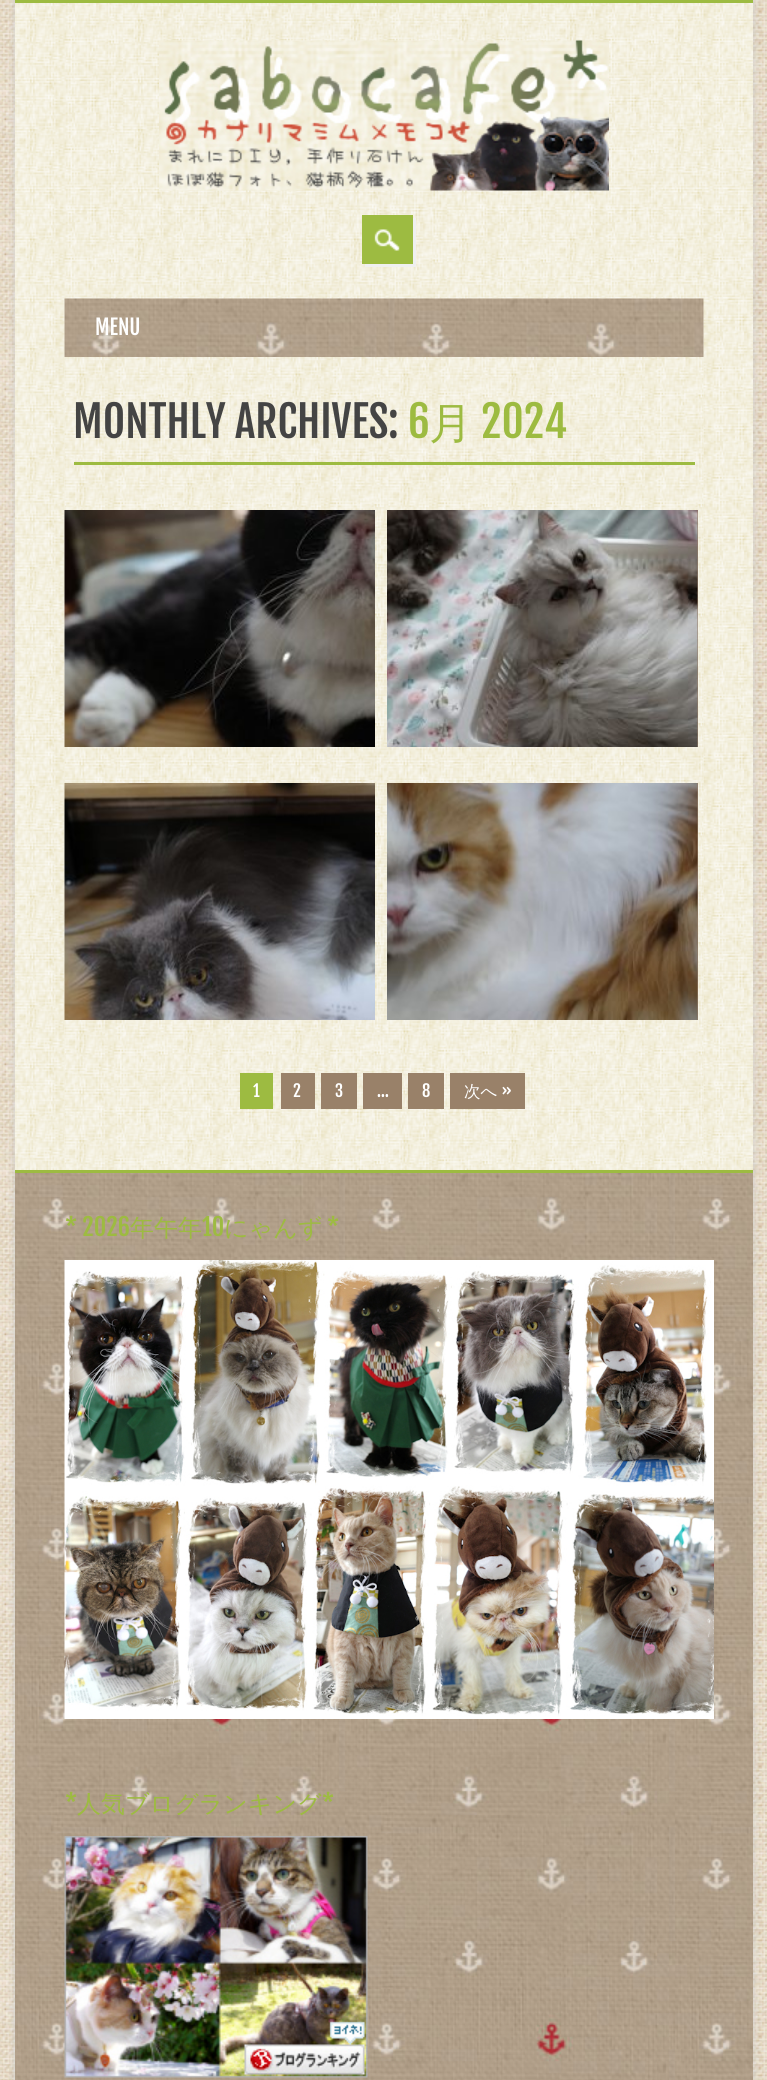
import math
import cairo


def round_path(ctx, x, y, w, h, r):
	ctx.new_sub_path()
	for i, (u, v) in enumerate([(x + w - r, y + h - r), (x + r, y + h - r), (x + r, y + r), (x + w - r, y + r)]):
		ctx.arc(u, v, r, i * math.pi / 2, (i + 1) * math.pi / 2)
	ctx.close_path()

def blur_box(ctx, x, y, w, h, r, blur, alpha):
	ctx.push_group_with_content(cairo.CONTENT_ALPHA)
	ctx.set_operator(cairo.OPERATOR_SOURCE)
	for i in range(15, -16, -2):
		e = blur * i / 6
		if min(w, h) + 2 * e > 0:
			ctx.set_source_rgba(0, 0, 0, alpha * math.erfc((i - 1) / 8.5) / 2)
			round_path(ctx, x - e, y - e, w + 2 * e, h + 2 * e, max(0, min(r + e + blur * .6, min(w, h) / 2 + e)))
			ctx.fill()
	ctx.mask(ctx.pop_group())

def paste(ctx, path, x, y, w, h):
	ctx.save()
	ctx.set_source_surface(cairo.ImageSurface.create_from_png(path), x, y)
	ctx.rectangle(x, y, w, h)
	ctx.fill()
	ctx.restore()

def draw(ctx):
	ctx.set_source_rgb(1, 1, 1)
	ctx.paint()
	paste(ctx, 'media/1.png', 0, 0, 767, 2080)
	ctx.set_source_rgb(0.816, 0.816, 0.816)
	blur_box(ctx, 15, 0, 738, 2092, 0, 4, 1)
	paste(ctx, 'media/2.png', 15, 3, 738, 1167)
	ctx.set_source_rgb(0.616, 0.733, 0.255)
	ctx.rectangle(15, 0, 738, 3)
	ctx.fill()
	paste(ctx, 'media/3.png', 159, 40, 450, 151)
	ctx.set_source_rgb(0.941, 0.941, 0.941)
	ctx.new_path()
	ctx.move_to(365, 264)
	ctx.line_to(365, 267)
	ctx.line_to(416, 267)
	ctx.line_to(416, 218)
	ctx.line_to(412, 218)
	ctx.line_to(412, 264)
	ctx.close_path()
	ctx.fill()
	ctx.set_source_rgb(0.616, 0.733, 0.255)
	ctx.rectangle(362, 215, 51, 49)
	ctx.fill()
	paste(ctx, 'media/4.png', 374, 229, 26, 22)
	paste(ctx, 'media/5.png', 64, 298, 640, 59)
	ctx.select_font_face('Fjalla One')
	ctx.set_font_size(21)
	ctx.set_source_rgb(1, 1, 1)
	ctx.move_to(95, 335)
	ctx.show_text('MENU')
	paste(ctx, 'media/6.png', 64, 357, 640, 813)
	ctx.set_font_size(43)
	ctx.set_source_rgb(0.267, 0.267, 0.267)
	ctx.move_to(73, 438)
	ctx.show_text('MONTHLY ARCHIVES:')
	ctx.set_source_rgb(0.616, 0.733, 0.255)
	ctx.move_to(408, 438)
	ctx.show_text('6')
	ctx.select_font_face('WenQuanYi Zen Hei Medium')
	ctx.move_to(429, 438)
	ctx.show_text('月')
	ctx.select_font_face('Fjalla One')
	ctx.move_to(481, 438)
	ctx.show_text('2024')
	ctx.rectangle(74, 462, 621, 3)
	ctx.fill()
	paste(ctx, 'media/7.png', 64, 510, 311, 237)
	ctx.set_source_rgb(0.6, 0.506, 0.412)
	ctx.rectangle(697, 510, 1, 237)
	ctx.fill()
	paste(ctx, 'media/8.png', 387, 510, 311, 237)
	paste(ctx, 'media/9.png', 64, 783, 311, 237)
	ctx.rectangle(697, 783, 1, 237)
	ctx.fill()
	paste(ctx, 'media/10.png', 387, 783, 311, 237)
	ctx.set_source_rgb(0.616, 0.733, 0.255)
	ctx.rectangle(240, 1073, 33, 36)
	ctx.fill()
	ctx.set_font_size(16.5)
	ctx.set_source_rgb(1, 1, 1)
	ctx.move_to(253, 1097)
	ctx.show_text('1')
	ctx.set_source_rgb(0.6, 0.506, 0.412)
	ctx.rectangle(281, 1073, 34, 36)
	ctx.fill()
	ctx.set_source_rgb(1, 1, 1)
	ctx.move_to(293, 1097)
	ctx.show_text('2')
	ctx.set_source_rgb(0.6, 0.506, 0.412)
	ctx.rectangle(321, 1073, 36, 36)
	ctx.fill()
	ctx.set_source_rgb(1, 1, 1)
	ctx.move_to(335, 1097)
	ctx.show_text('3')
	ctx.set_source_rgb(0.6, 0.506, 0.412)
	ctx.rectangle(363, 1073, 39, 36)
	ctx.fill()
	ctx.set_source_rgb(1, 1, 1)
	ctx.move_to(377, 1097)
	ctx.show_text('…')
	ctx.set_source_rgb(0.6, 0.506, 0.412)
	ctx.rectangle(408, 1073, 36, 36)
	ctx.fill()
	ctx.set_source_rgb(1, 1, 1)
	ctx.move_to(422, 1097)
	ctx.show_text('8')
	ctx.set_source_rgb(0.6, 0.506, 0.412)
	ctx.rectangle(450, 1073, 75, 36)
	ctx.fill()
	ctx.select_font_face('WenQuanYi Zen Hei Medium')
	ctx.set_source_rgb(1, 1, 1)
	ctx.move_to(464, 1097)
	ctx.show_text('次へ')
	ctx.select_font_face('Fjalla One')
	ctx.move_to(501, 1097)
	ctx.show_text('»')
	paste(ctx, 'media/11.png', 15, 1173, 738, 907)
	ctx.set_source_rgb(0.616, 0.733, 0.255)
	ctx.rectangle(15, 1170, 738, 3)
	ctx.fill()
	ctx.set_font_size(24)
	ctx.move_to(65, 1236)
	ctx.show_text('* 2026')
	ctx.select_font_face('WenQuanYi Zen Hei Medium')
	ctx.move_to(130, 1236)
	ctx.show_text('年午年')
	ctx.select_font_face('Fjalla One')
	ctx.move_to(202, 1236)
	ctx.show_text('10')
	ctx.select_font_face('WenQuanYi Zen Hei Medium')
	ctx.move_to(224, 1236)
	ctx.show_text('にゃんず')
	ctx.select_font_face('Fjalla One')
	ctx.move_to(327, 1236)
	ctx.show_text('*')
	paste(ctx, 'media/12.png', 64, 1260, 650, 459)
	ctx.move_to(65, 1812)
	ctx.show_text('*')
	ctx.select_font_face('WenQuanYi Zen Hei Medium')
	ctx.move_to(77, 1812)
	ctx.show_text('人気ブログランキング')
	ctx.select_font_face('Fjalla One')
	ctx.move_to(322, 1812)
	ctx.show_text('*')
	paste(ctx, 'media/13.png', 64, 1836, 304, 242)


surface = cairo.ImageSurface(cairo.FORMAT_RGB24, 767, 2080)
ctx = cairo.Context(surface)
options = cairo.FontOptions()
options.set_hint_metrics(cairo.HINT_METRICS_OFF)
options.set_hint_style(cairo.HINT_STYLE_NONE)
ctx.set_font_options(options)
ctx.set_miter_limit(4)
draw(ctx)
surface.write_to_png('image.png')
